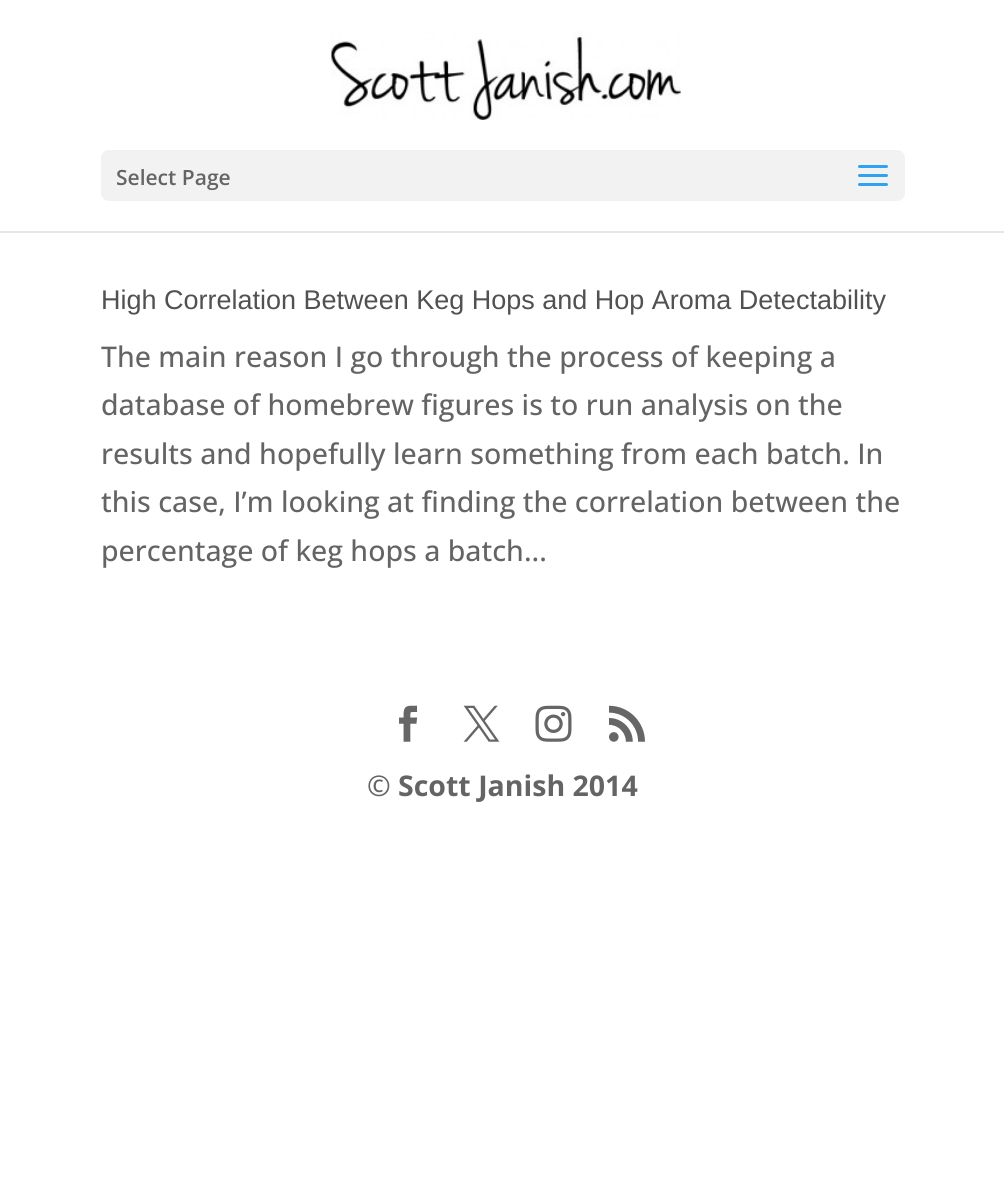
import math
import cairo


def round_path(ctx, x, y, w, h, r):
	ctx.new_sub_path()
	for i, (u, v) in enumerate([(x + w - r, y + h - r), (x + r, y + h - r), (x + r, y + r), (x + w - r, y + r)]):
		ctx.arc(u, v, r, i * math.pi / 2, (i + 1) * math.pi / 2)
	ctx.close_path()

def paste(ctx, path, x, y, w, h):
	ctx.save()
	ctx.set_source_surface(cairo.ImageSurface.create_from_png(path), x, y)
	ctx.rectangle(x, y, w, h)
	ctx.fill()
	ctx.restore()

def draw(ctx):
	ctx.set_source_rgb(1, 1, 1)
	ctx.paint()
	ctx.set_source_rgb(0.902, 0.902, 0.902)
	ctx.rectangle(0, 231, 1004, 2)
	ctx.fill()
	paste(ctx, 'media/1.png', 331, 30, 350, 90)
	ctx.set_source_rgb(0.949, 0.949, 0.949)
	round_path(ctx, 101, 150, 804, 51, 8)
	ctx.fill()
	ctx.select_font_face('Open Sans SemiBold')
	ctx.set_font_size(21)
	ctx.set_source_rgb(0.392, 0.392, 0.392)
	ctx.move_to(116, 185)
	ctx.show_text('Select Page')
	paste(ctx, 'media/2.png', 858, 165, 30, 21)
	ctx.select_font_face('Liberation Sans')
	ctx.set_font_size(27)
	ctx.set_source_rgb(0.318, 0.318, 0.318)
	ctx.move_to(101, 309)
	ctx.show_text('High Correlation Between Keg Hops and Hop Aroma Detectability')
	ctx.select_font_face('Open Sans Medium')
	ctx.set_font_size(28.5)
	ctx.set_source_rgb(0.392, 0.392, 0.392)
	for x, y, s in [
		(101, 367, 'The main reason I go through the process of keeping a'),
		(101, 415, 'database of homebrew figures is to run analysis on the'),
		(101, 464, 'results and hopefully learn something from each batch. In'),
		(101, 512, 'this case, I’m looking at finding the correlation between the'),
		(101, 561, 'percentage of keg hops a batch...'),
	]:
		ctx.move_to(x, y)
		ctx.show_text(s)
	paste(ctx, 'media/3.png', 399, 705, 19, 37)
	paste(ctx, 'media/4.png', 463, 705, 37, 37)
	paste(ctx, 'media/5.png', 535, 705, 37, 37)
	paste(ctx, 'media/6.png', 609, 705, 36, 37)
	ctx.move_to(367, 796)
	ctx.show_text('©')
	ctx.select_font_face('Open Sans', cairo.FONT_SLANT_NORMAL, cairo.FONT_WEIGHT_BOLD)
	ctx.move_to(398, 796)
	ctx.show_text('Scott Janish 2014')


surface = cairo.ImageSurface(cairo.FORMAT_RGB24, 1004, 1194)
ctx = cairo.Context(surface)
options = cairo.FontOptions()
options.set_hint_metrics(cairo.HINT_METRICS_OFF)
options.set_hint_style(cairo.HINT_STYLE_NONE)
ctx.set_font_options(options)
ctx.set_miter_limit(4)
draw(ctx)
surface.write_to_png('image.png')
